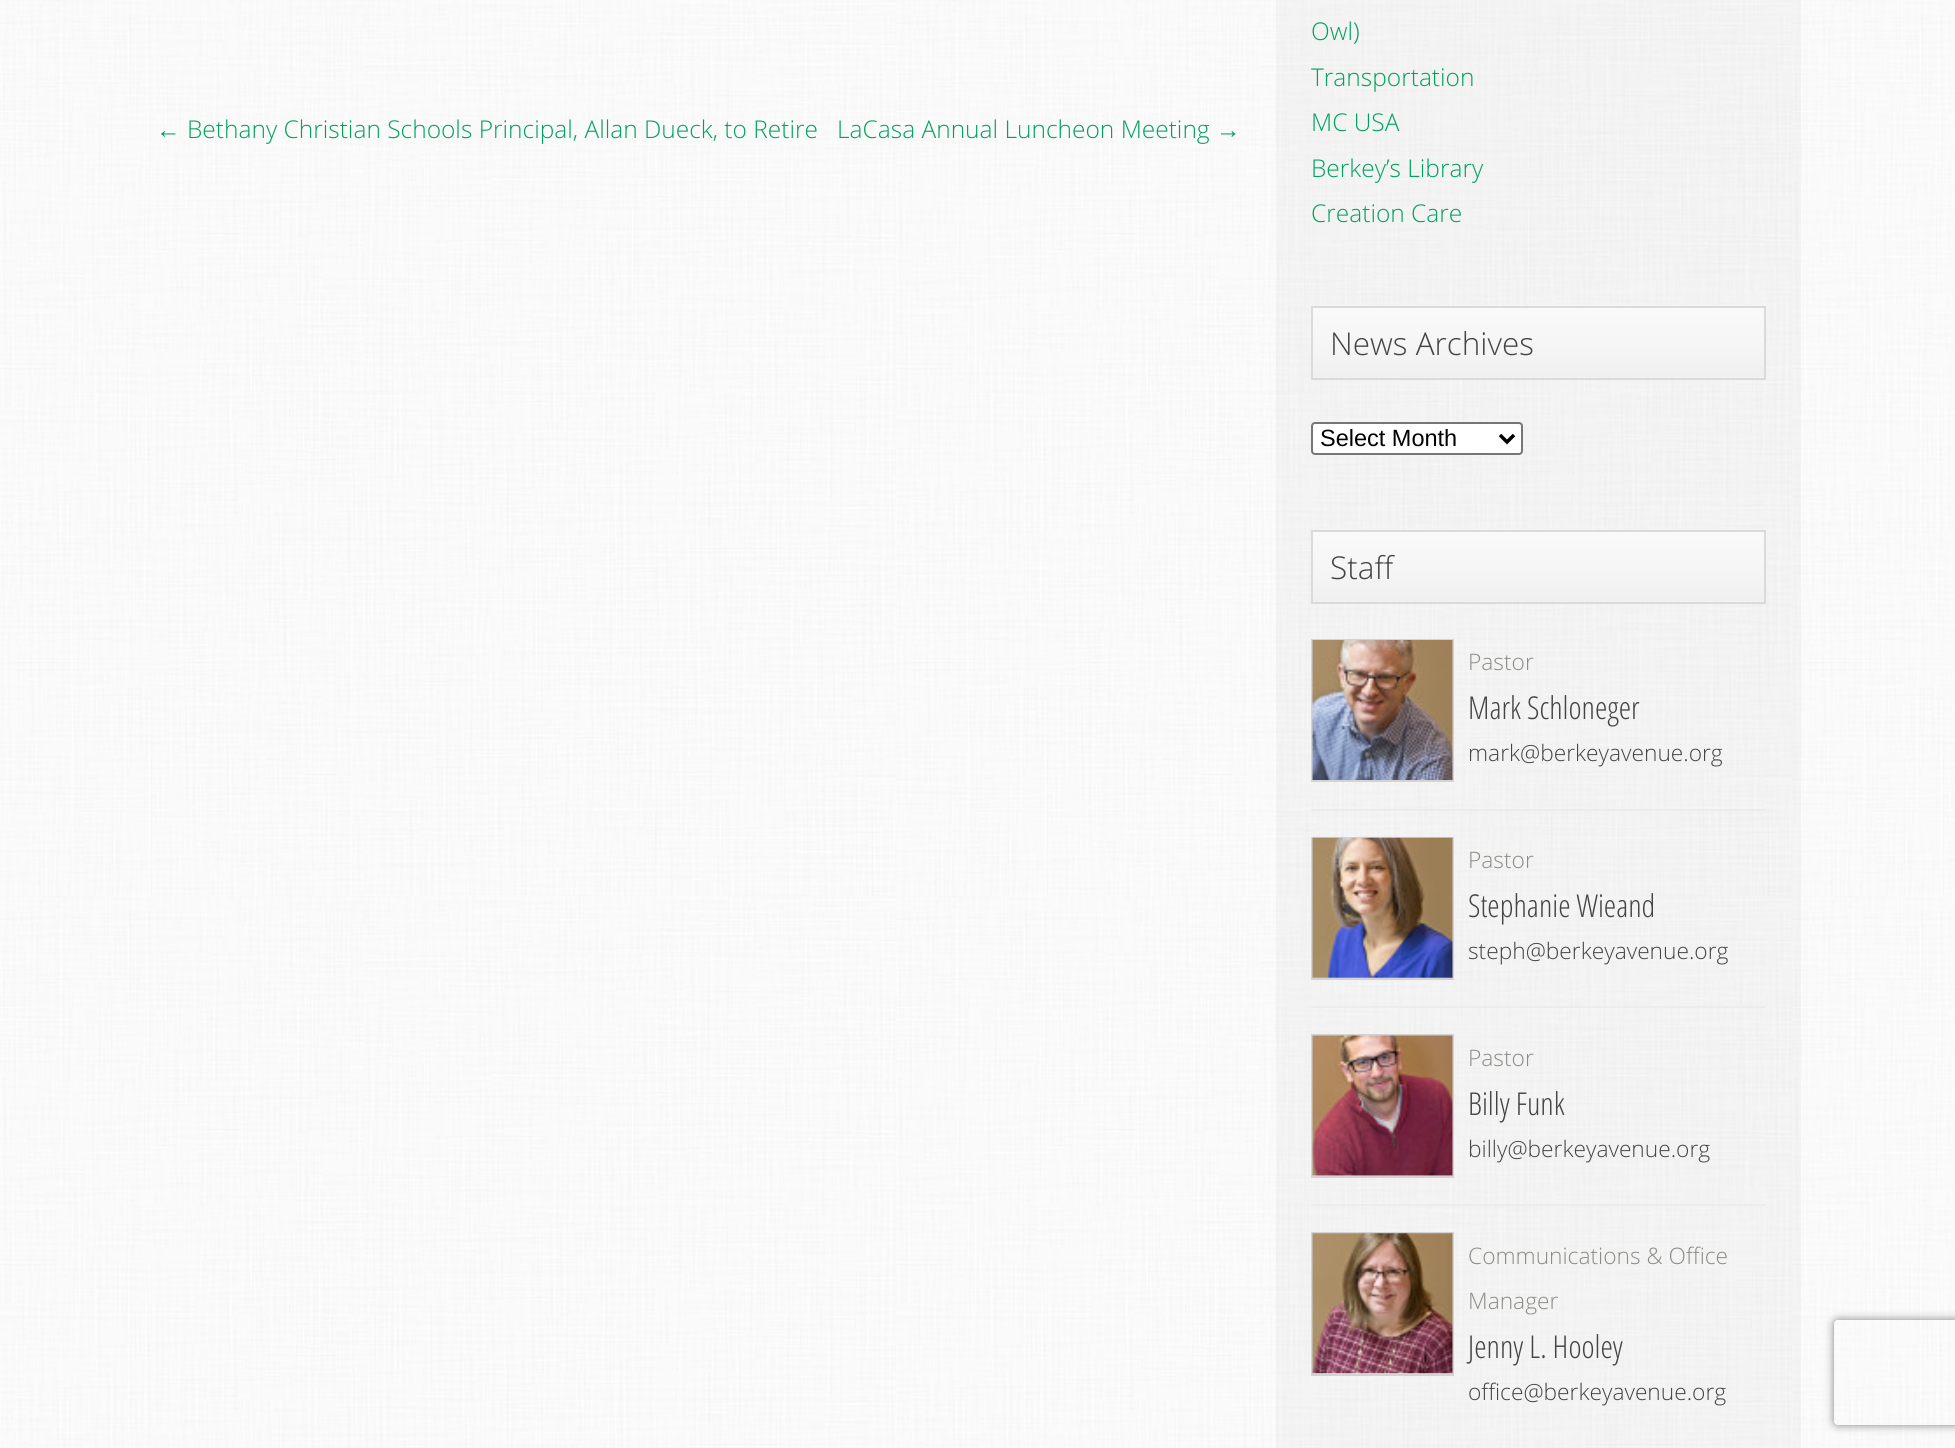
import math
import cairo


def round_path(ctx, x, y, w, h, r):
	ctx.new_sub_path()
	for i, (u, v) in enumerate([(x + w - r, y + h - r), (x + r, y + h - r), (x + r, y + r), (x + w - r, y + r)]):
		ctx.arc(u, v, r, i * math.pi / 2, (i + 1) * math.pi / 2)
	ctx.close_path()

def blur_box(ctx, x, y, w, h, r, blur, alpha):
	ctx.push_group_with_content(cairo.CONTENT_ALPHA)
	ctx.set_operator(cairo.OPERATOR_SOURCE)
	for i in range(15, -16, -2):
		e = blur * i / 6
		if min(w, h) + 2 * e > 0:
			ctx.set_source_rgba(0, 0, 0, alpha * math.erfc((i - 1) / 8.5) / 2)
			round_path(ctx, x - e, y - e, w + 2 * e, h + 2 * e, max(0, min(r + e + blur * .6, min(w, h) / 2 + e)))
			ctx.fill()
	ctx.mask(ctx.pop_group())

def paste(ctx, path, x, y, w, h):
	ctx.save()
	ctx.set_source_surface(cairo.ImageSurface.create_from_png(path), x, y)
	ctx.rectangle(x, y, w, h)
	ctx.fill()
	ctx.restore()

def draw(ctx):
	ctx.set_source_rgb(1, 1, 1)
	ctx.paint()
	paste(ctx, 'media/1.png', 0, 0, 1955, 1448)
	ctx.select_font_face('Liberation Sans')
	ctx.set_font_size(24.5)
	ctx.set_source_rgb(0, 0.631, 0.369)
	ctx.move_to(156, 138)
	ctx.show_text('←')
	ctx.select_font_face('Open Sans Light')
	ctx.move_to(187, 138)
	ctx.show_text('Bethany Christian Schools Principal, Allan Dueck, to Retire')
	ctx.move_to(837, 138)
	ctx.show_text('LaCasa Annual Luncheon Meeting')
	ctx.select_font_face('Liberation Sans')
	ctx.move_to(1216, 138)
	ctx.show_text('→')
	ctx.set_source_rgba(0, 0, 0, 0.03)
	ctx.rectangle(1276, 0, 525, 1448)
	ctx.fill()
	ctx.select_font_face('Open Sans Light')
	ctx.set_source_rgb(0, 0.631, 0.369)
	for x, y, s in [
		(1311, 40, 'Owl)'),
		(1311, 86, 'Transportation'),
		(1311, 131, 'MC USA'),
		(1311, 177, 'Berkey’s Library'),
		(1311, 222, 'Creation Care'),
	]:
		ctx.move_to(x, y)
		ctx.show_text(s)
	paste(ctx, 'media/2.png', 1313, 308, 451, 69)
	ctx.rectangle(1312, 307, 453, 72)
	ctx.set_source_rgb(0.855, 0.855, 0.855)
	ctx.stroke()
	ctx.set_font_size(31.5)
	ctx.set_source_rgb(0.267, 0.267, 0.267)
	ctx.move_to(1330, 355)
	ctx.show_text('News Archives')
	ctx.set_source_rgb(1, 1, 1)
	round_path(ctx, 1312, 423, 210, 31, 3)
	ctx.fill_preserve()
	ctx.set_source_rgb(0.463, 0.463, 0.463)
	ctx.stroke()
	ctx.new_path()
	ctx.move_to(1500, 435)
	ctx.line_to(1507, 442)
	ctx.line_to(1514, 435)
	ctx.set_source_rgb(0, 0, 0)
	ctx.set_line_width(3.5)
	ctx.stroke()
	ctx.select_font_face('Liberation Sans')
	ctx.set_font_size(23.5)
	ctx.move_to(1320, 446)
	ctx.show_text('Select Month')
	paste(ctx, 'media/2.png', 1313, 532, 451, 69)
	ctx.rectangle(1312, 531, 453, 72)
	ctx.set_source_rgb(0.855, 0.855, 0.855)
	ctx.set_line_width(2)
	ctx.stroke()
	ctx.select_font_face('Open Sans Light')
	ctx.set_font_size(31.5)
	ctx.set_source_rgb(0.267, 0.267, 0.267)
	ctx.move_to(1330, 579)
	ctx.show_text('Staff')
	ctx.set_source_rgb(0.925, 0.922, 0.922)
	ctx.rectangle(1311, 809, 455, 2)
	ctx.fill()
	ctx.rectangle(1312, 640, 141, 141)
	ctx.set_source_rgb(0.827, 0.827, 0.827)
	ctx.stroke()
	paste(ctx, 'media/3.png', 1312, 640, 141, 140)
	ctx.set_font_size(22.75)
	ctx.set_source_rgb(0.545, 0.545, 0.525)
	ctx.move_to(1468, 670)
	ctx.show_text('Pastor')
	ctx.select_font_face('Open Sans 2 Light')
	ctx.set_font_size(31.5)
	ctx.set_source_rgb(0.267, 0.267, 0.267)
	ctx.move_to(1468, 719)
	ctx.show_text('Mark Schloneger')
	ctx.select_font_face('Open Sans Light')
	ctx.set_font_size(22.75)
	ctx.move_to(1468, 761)
	ctx.show_text('mark@berkeyavenue.org')
	ctx.set_source_rgb(0.925, 0.922, 0.922)
	ctx.rectangle(1311, 1006, 455, 2)
	ctx.fill()
	ctx.rectangle(1312, 838, 141, 141)
	ctx.set_source_rgb(0.827, 0.827, 0.827)
	ctx.stroke()
	paste(ctx, 'media/4.png', 1312, 837, 141, 141)
	ctx.set_source_rgb(0.545, 0.545, 0.525)
	ctx.move_to(1468, 868)
	ctx.show_text('Pastor')
	ctx.select_font_face('Open Sans 2 Light')
	ctx.set_font_size(31.5)
	ctx.set_source_rgb(0.267, 0.267, 0.267)
	ctx.move_to(1468, 917)
	ctx.show_text('Stephanie Wieand')
	ctx.select_font_face('Open Sans Light')
	ctx.set_font_size(22.75)
	ctx.move_to(1468, 959)
	ctx.show_text('steph@berkeyavenue.org')
	ctx.set_source_rgb(0.925, 0.922, 0.922)
	ctx.rectangle(1311, 1204, 455, 2)
	ctx.fill()
	ctx.rectangle(1312, 1035, 141, 142)
	ctx.set_source_rgb(0.827, 0.827, 0.827)
	ctx.stroke()
	paste(ctx, 'media/5.png', 1312, 1035, 141, 141)
	ctx.set_source_rgb(0.545, 0.545, 0.525)
	ctx.move_to(1468, 1066)
	ctx.show_text('Pastor')
	ctx.select_font_face('Open Sans 2 Light')
	ctx.set_font_size(31.5)
	ctx.set_source_rgb(0.267, 0.267, 0.267)
	ctx.move_to(1468, 1115)
	ctx.show_text('Billy Funk')
	ctx.select_font_face('Open Sans Light')
	ctx.set_font_size(22.75)
	ctx.move_to(1468, 1157)
	ctx.show_text('billy@berkeyavenue.org')
	ctx.rectangle(1312, 1233, 141, 142)
	ctx.set_source_rgb(0.827, 0.827, 0.827)
	ctx.stroke()
	paste(ctx, 'media/6.png', 1312, 1233, 141, 141)
	ctx.set_source_rgb(0.545, 0.545, 0.525)
	ctx.move_to(1468, 1264)
	ctx.show_text('Communications & Office')
	ctx.move_to(1468, 1309)
	ctx.show_text('Manager')
	ctx.select_font_face('Open Sans 2 Light')
	ctx.set_font_size(31.5)
	ctx.set_source_rgb(0.267, 0.267, 0.267)
	ctx.move_to(1468, 1358)
	ctx.show_text('Jenny L. Hooley')
	ctx.select_font_face('Open Sans Light')
	ctx.set_font_size(22.75)
	ctx.move_to(1468, 1400)
	ctx.show_text('office@berkeyavenue.org')
	ctx.save()
	ctx.set_fill_rule(cairo.FILL_RULE_EVEN_ODD)
	ctx.new_path()
	ctx.move_to(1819, 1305)
	ctx.line_to(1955, 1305)
	ctx.line_to(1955, 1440)
	ctx.line_to(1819, 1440)
	ctx.close_path()
	ctx.move_to(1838, 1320)
	ctx.line_to(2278, 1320)
	ctx.curve_to(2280, 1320, 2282, 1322, 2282, 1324)
	ctx.line_to(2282, 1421)
	ctx.curve_to(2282, 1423, 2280, 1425, 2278, 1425)
	ctx.line_to(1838, 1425)
	ctx.curve_to(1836, 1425, 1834, 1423, 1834, 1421)
	ctx.line_to(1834, 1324)
	ctx.curve_to(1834, 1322, 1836, 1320, 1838, 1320)
	ctx.close_path()
	ctx.clip()
	ctx.set_source_rgb(0.502, 0.502, 0.502)
	blur_box(ctx, 1834, 1320, 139, 105, 4, 4.5, 1)
	ctx.restore()


surface = cairo.ImageSurface(cairo.FORMAT_RGB24, 1955, 1448)
ctx = cairo.Context(surface)
options = cairo.FontOptions()
options.set_hint_metrics(cairo.HINT_METRICS_OFF)
options.set_hint_style(cairo.HINT_STYLE_NONE)
ctx.set_font_options(options)
ctx.set_miter_limit(4)
draw(ctx)
surface.write_to_png('image.png')
